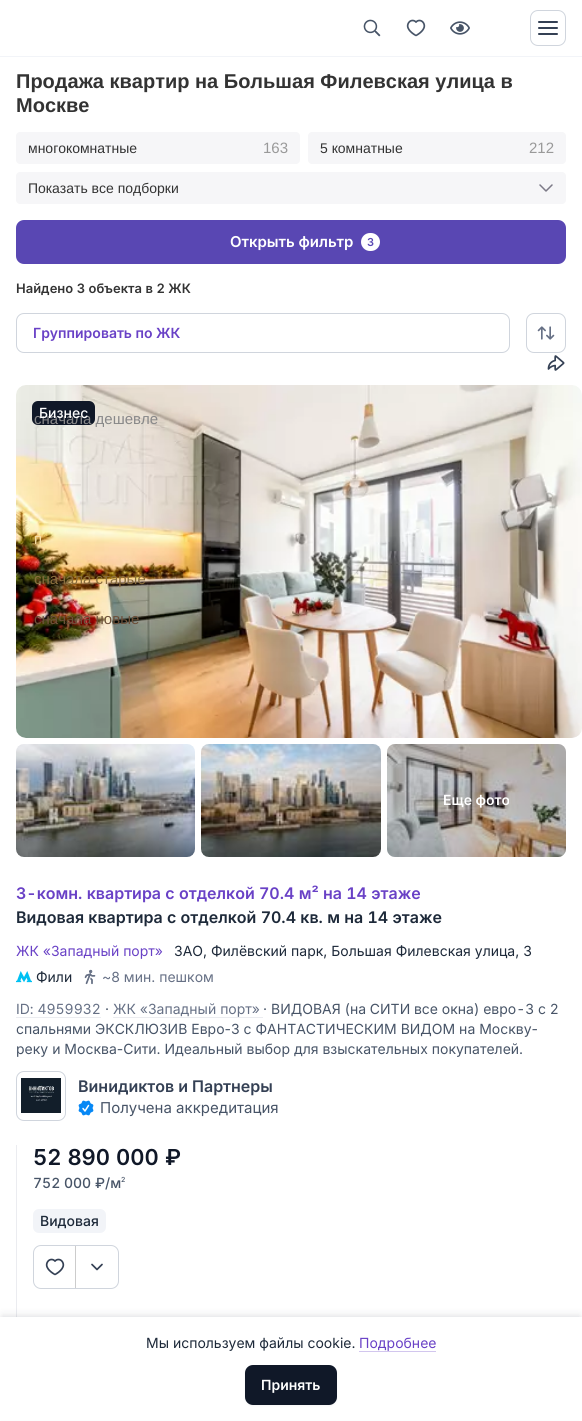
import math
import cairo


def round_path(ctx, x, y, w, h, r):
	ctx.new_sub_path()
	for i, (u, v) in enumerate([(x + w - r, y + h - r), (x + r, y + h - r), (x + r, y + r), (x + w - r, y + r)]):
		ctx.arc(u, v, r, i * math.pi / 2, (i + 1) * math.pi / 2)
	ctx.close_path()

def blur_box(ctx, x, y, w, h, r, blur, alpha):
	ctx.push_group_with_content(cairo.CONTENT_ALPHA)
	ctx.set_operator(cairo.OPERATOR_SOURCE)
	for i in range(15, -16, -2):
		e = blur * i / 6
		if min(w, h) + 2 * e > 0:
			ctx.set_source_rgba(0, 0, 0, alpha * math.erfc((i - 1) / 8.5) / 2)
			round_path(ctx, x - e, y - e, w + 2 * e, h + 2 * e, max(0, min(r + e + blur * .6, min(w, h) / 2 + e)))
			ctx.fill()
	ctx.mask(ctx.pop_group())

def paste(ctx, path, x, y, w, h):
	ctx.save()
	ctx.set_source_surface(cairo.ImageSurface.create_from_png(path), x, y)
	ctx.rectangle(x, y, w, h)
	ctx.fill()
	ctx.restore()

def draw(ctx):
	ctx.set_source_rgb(1, 1, 1)
	ctx.paint()
	ctx.set_source_rgb(0.949, 0.957, 0.969)
	ctx.rectangle(0, 56, 582, 1)
	ctx.fill()
	paste(ctx, 'media/1.png', 363, 19, 18, 18)
	paste(ctx, 'media/2.png', 406, 19, 20, 18)
	paste(ctx, 'media/3.png', 450, 21, 20, 14)
	round_path(ctx, 530.5, 10.5, 35, 35, 7.5)
	ctx.set_source_rgb(0.816, 0.835, 0.867)
	ctx.set_line_width(1)
	ctx.stroke()
	ctx.set_source_rgb(0.204, 0.251, 0.329)
	round_path(ctx, 538, 27, 20, 2, 1)
	ctx.fill()
	round_path(ctx, 538, 21, 20, 2, 1)
	ctx.fill()
	round_path(ctx, 538, 33, 20, 2, 1)
	ctx.fill()
	ctx.select_font_face('Liberation Sans', cairo.FONT_SLANT_NORMAL, cairo.FONT_WEIGHT_BOLD)
	ctx.set_font_size(20)
	ctx.set_source_rgb(0.2, 0.2, 0.2)
	ctx.move_to(16, 88)
	ctx.show_text('Продажа квартир на Большая Филевская улица в')
	ctx.move_to(16, 112)
	ctx.show_text('Москве')
	ctx.set_source_rgb(0.961, 0.961, 0.969)
	round_path(ctx, 16, 132, 284, 32, 4)
	ctx.fill()
	ctx.select_font_face('Liberation Sans')
	ctx.set_font_size(14)
	ctx.set_source_rgb(0.2, 0.2, 0.2)
	ctx.move_to(28, 153)
	ctx.show_text('многокомнатные')
	ctx.set_font_size(15)
	ctx.set_source_rgb(0.6, 0.6, 0.6)
	ctx.move_to(263, 153)
	ctx.show_text('163')
	ctx.set_source_rgb(0.961, 0.961, 0.969)
	round_path(ctx, 308, 132, 258, 32, 4)
	ctx.fill()
	ctx.set_font_size(14)
	ctx.set_source_rgb(0.2, 0.2, 0.2)
	ctx.move_to(320, 153)
	ctx.show_text('5 комнатные')
	ctx.set_font_size(15)
	ctx.set_source_rgb(0.6, 0.6, 0.6)
	ctx.move_to(529, 153)
	ctx.show_text('212')
	ctx.set_source_rgb(0.961, 0.961, 0.969)
	round_path(ctx, 16, 172, 550, 32, 4)
	ctx.fill()
	ctx.set_font_size(14)
	ctx.set_source_rgb(0.2, 0.2, 0.2)
	ctx.move_to(28, 193)
	ctx.show_text('Показать все подборки')
	ctx.new_path()
	ctx.move_to(552, 185)
	ctx.line_to(546, 191)
	ctx.line_to(540, 185)
	ctx.set_source_rgb(0.486, 0.478, 0.529)
	ctx.set_line_width(1.5)
	ctx.set_line_cap(cairo.LINE_CAP_ROUND)
	ctx.set_line_join(cairo.LINE_JOIN_ROUND)
	ctx.stroke()
	ctx.set_source_rgb(0.349, 0.278, 0.702)
	round_path(ctx, 16, 220, 550, 44, 8)
	ctx.fill()
	ctx.select_font_face('Inter SemiBold')
	ctx.set_font_size(15)
	ctx.set_source_rgb(1, 1, 1)
	ctx.move_to(230, 247)
	ctx.show_text('Открыть фильтр')
	round_path(ctx, 361, 233, 19, 18, 9)
	ctx.fill()
	ctx.set_font_size(11)
	ctx.set_source_rgb(0.349, 0.278, 0.702)
	ctx.move_to(367, 246)
	ctx.show_text('3')
	ctx.select_font_face('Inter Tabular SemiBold')
	ctx.set_font_size(13)
	ctx.set_source_rgb(0.2, 0.2, 0.2)
	ctx.move_to(16, 293)
	ctx.show_text('Найдено 3 объекта в 2 ЖК')
	round_path(ctx, 16.5, 313.5, 493, 39, 7.5)
	ctx.set_source_rgb(0.816, 0.835, 0.867)
	ctx.set_line_width(1)
	ctx.set_line_cap(cairo.LINE_CAP_BUTT)
	ctx.set_line_join(cairo.LINE_JOIN_MITER)
	ctx.stroke()
	ctx.select_font_face('Inter SemiBold')
	ctx.set_font_size(14)
	ctx.set_source_rgb(0.412, 0.255, 0.776)
	ctx.move_to(33, 338)
	ctx.show_text('Группировать по ЖК')
	round_path(ctx, 526.5, 313.5, 39, 39, 7.5)
	ctx.set_source_rgb(0.816, 0.835, 0.867)
	ctx.stroke()
	paste(ctx, 'media/4.png', 537, 326, 18, 14)
	paste(ctx, 'media/6.png', 16, 385, 566, 353)
	ctx.set_source_rgb(0.063, 0.094, 0.157)
	round_path(ctx, 32, 401, 63, 24, 6)
	ctx.fill()
	ctx.select_font_face('Liberation Sans')
	ctx.set_font_size(15)
	ctx.set_source_rgb(0.533, 0.533, 0.537)
	ctx.move_to(34, 424)
	ctx.show_text('сначала дешевле')
	ctx.set_source_rgb(0.965, 0.875, 0.655)
	ctx.move_to(34, 544)
	ctx.show_text('п')
	ctx.set_source_rgb(0.537, 0.427, 0.239)
	ctx.move_to(34, 584)
	ctx.show_text('сначала старые')
	ctx.set_source_rgb(0.427, 0.314, 0.224)
	ctx.move_to(34, 624)
	ctx.show_text('сначала новые')
	paste(ctx, 'media/5.png', 547, 355, 18, 16)
	ctx.select_font_face('Inter Medium')
	ctx.set_font_size(14)
	ctx.set_source_rgb(1, 1, 1)
	ctx.move_to(39, 418)
	ctx.show_text('Бизнес')
	paste(ctx, 'media/7.png', 16, 744, 179, 113)
	paste(ctx, 'media/8.png', 201, 744, 180, 113)
	paste(ctx, 'media/9.png', 387, 744, 179, 113)
	ctx.set_source_rgba(0.047, 0.067, 0.114, 0.24)
	round_path(ctx, 387, 744, 179, 113, 8)
	ctx.fill()
	ctx.select_font_face('Inter SemiBold')
	ctx.set_source_rgb(1, 1, 1)
	ctx.move_to(443, 805)
	ctx.show_text('Еще фото')
	ctx.select_font_face('Inter Tabular SemiBold')
	ctx.set_font_size(16)
	ctx.set_source_rgb(0.412, 0.255, 0.776)
	ctx.move_to(16, 899)
	ctx.show_text('3-комн. квартира с отделкой 70.4 м² на 14 этаже')
	ctx.set_source_rgb(0.114, 0.161, 0.224)
	ctx.move_to(16, 923)
	ctx.show_text('Видовая квартира с отделкой 70.4 кв. м на 14 этаже')
	ctx.select_font_face('Inter')
	ctx.set_font_size(14)
	ctx.set_source_rgb(0.412, 0.255, 0.776)
	ctx.move_to(16, 956)
	ctx.show_text('ЖК «Западный порт»')
	ctx.set_source_rgb(0.114, 0.161, 0.224)
	ctx.move_to(174, 956)
	ctx.show_text('ЗАО, Филёвский парк, Большая Филевская улица, 3')
	paste(ctx, 'media/10.png', 16, 971, 16, 12)
	ctx.move_to(36, 982)
	ctx.show_text('Фили')
	paste(ctx, 'media/11.png', 84, 969, 12, 16)
	ctx.set_source_rgb(0.4, 0.439, 0.522)
	ctx.move_to(102, 982)
	ctx.show_text('~8 мин. пешком')
	ctx.select_font_face('Inter Tabular')
	ctx.set_source_rgb(0.278, 0.329, 0.404)
	ctx.move_to(271, 1014)
	ctx.show_text('ВИДОВАЯ (на СИТИ все окна) евро-3 с 2')
	ctx.select_font_face('Inter')
	ctx.move_to(16, 1034)
	ctx.show_text('спальнями ЭКСКЛЮЗИВ Евро-3 с ФАНТАСТИЧЕСКИМ ВИДОМ на Москву-')
	ctx.move_to(16, 1054)
	ctx.show_text('реку и Москва-Сити. Идеальный выбор для взыскательных покупателей.')
	ctx.select_font_face('Inter Tabular')
	ctx.set_source_rgb(0.4, 0.439, 0.522)
	ctx.move_to(16, 1014)
	ctx.show_text('ID: 4959932')
	ctx.set_source_rgb(0.918, 0.925, 0.941)
	ctx.rectangle(16, 1017, 85, 1)
	ctx.fill()
	ctx.select_font_face('Inter')
	ctx.set_source_rgb(0.278, 0.329, 0.404)
	ctx.move_to(105, 1014)
	ctx.show_text('·')
	ctx.set_source_rgb(0.4, 0.439, 0.522)
	ctx.move_to(113, 1014)
	ctx.show_text('ЖК «Западный порт»')
	ctx.set_source_rgb(0.918, 0.925, 0.941)
	ctx.rectangle(113, 1017, 150, 1)
	ctx.fill()
	ctx.set_source_rgb(0.278, 0.329, 0.404)
	ctx.move_to(263, 1014)
	ctx.show_text('·')
	round_path(ctx, 16.5, 1071.5, 49, 49, 7.5)
	ctx.set_source_rgb(0.816, 0.835, 0.867)
	ctx.stroke()
	paste(ctx, 'media/12.png', 21, 1078, 40, 35)
	ctx.select_font_face('Inter SemiBold')
	ctx.set_font_size(16)
	ctx.set_source_rgb(0.204, 0.251, 0.329)
	ctx.move_to(78, 1092)
	ctx.show_text('Винидиктов и Партнеры')
	paste(ctx, 'media/13.png', 78, 1100, 16, 16)
	ctx.select_font_face('Inter')
	ctx.set_font_size(15)
	ctx.set_source_rgb(0.278, 0.329, 0.404)
	ctx.move_to(100, 1113)
	ctx.show_text('Получена аккредитация')
	ctx.set_source_rgb(0.918, 0.925, 0.941)
	ctx.rectangle(16, 1145, 1, 172)
	ctx.fill()
	ctx.select_font_face('Inter Tabular SemiBold')
	ctx.set_font_size(22)
	ctx.set_source_rgb(0.063, 0.094, 0.157)
	ctx.move_to(33, 1165)
	ctx.show_text('52 890 000')
	ctx.select_font_face('Inter SemiBold')
	ctx.move_to(165, 1165)
	ctx.show_text('₽')
	ctx.select_font_face('Inter Tabular Medium')
	ctx.set_font_size(14)
	ctx.set_source_rgb(0.278, 0.329, 0.404)
	ctx.move_to(33, 1188)
	ctx.show_text('752 000')
	ctx.select_font_face('Inter Medium')
	ctx.move_to(95, 1188)
	ctx.show_text('₽/м')
	ctx.set_font_size(7)
	ctx.move_to(121, 1182)
	ctx.show_text('2')
	ctx.set_source_rgb(0.949, 0.957, 0.969)
	round_path(ctx, 33, 1209, 73, 24, 6)
	ctx.fill()
	ctx.set_font_size(14)
	ctx.set_source_rgb(0.114, 0.161, 0.224)
	ctx.move_to(40, 1226)
	ctx.show_text('Видовая')
	round_path(ctx, 33.5, 1245.5, 85, 43, 7.5)
	ctx.set_source_rgb(0.816, 0.835, 0.867)
	ctx.stroke()
	ctx.set_source_rgb(0.8, 0.8, 0.8)
	ctx.rectangle(75, 1246, 1, 42)
	ctx.fill()
	paste(ctx, 'media/14.png', 45, 1258, 20, 18)
	ctx.new_path()
	ctx.move_to(92, 1264.5)
	ctx.line_to(97, 1269.5)
	ctx.line_to(102, 1264.5)
	ctx.set_source_rgb(0.204, 0.251, 0.329)
	ctx.set_line_width(1.7)
	ctx.set_line_cap(cairo.LINE_CAP_ROUND)
	ctx.set_line_join(cairo.LINE_JOIN_ROUND)
	ctx.stroke()
	ctx.set_source_rgb(0.063, 0.094, 0.157)
	blur_box(ctx, 2, 1317, 578, 100, 0, 2, 0.06)
	blur_box(ctx, 2, 1315, 578, 100, 0, 4, 0.1)
	ctx.set_source_rgb(1, 1, 1)
	ctx.rectangle(0, 1317, 582, 103)
	ctx.fill()
	ctx.select_font_face('Inter')
	ctx.set_source_rgb(0.114, 0.161, 0.224)
	ctx.move_to(146, 1348)
	ctx.show_text('Мы используем файлы cookie.')
	ctx.set_source_rgb(0.412, 0.255, 0.776)
	ctx.move_to(359, 1348)
	ctx.show_text('Подробнее')
	ctx.set_source_rgb(0.824, 0.776, 0.933)
	ctx.rectangle(359, 1351, 77, 1)
	ctx.fill()
	ctx.set_source_rgb(0.063, 0.094, 0.157)
	blur_box(ctx, 245, 1366, 92, 40, 8, 1, 0.05)
	ctx.set_source_rgb(0.063, 0.094, 0.157)
	round_path(ctx, 245, 1365, 92, 40, 8)
	ctx.fill()
	ctx.select_font_face('Inter SemiBold')
	ctx.set_source_rgb(1, 1, 1)
	ctx.move_to(261, 1390)
	ctx.show_text('Принять')


surface = cairo.ImageSurface(cairo.FORMAT_RGB24, 582, 1421)
ctx = cairo.Context(surface)
options = cairo.FontOptions()
options.set_hint_metrics(cairo.HINT_METRICS_OFF)
options.set_hint_style(cairo.HINT_STYLE_NONE)
ctx.set_font_options(options)
ctx.set_miter_limit(4)
draw(ctx)
surface.write_to_png('image.png')
